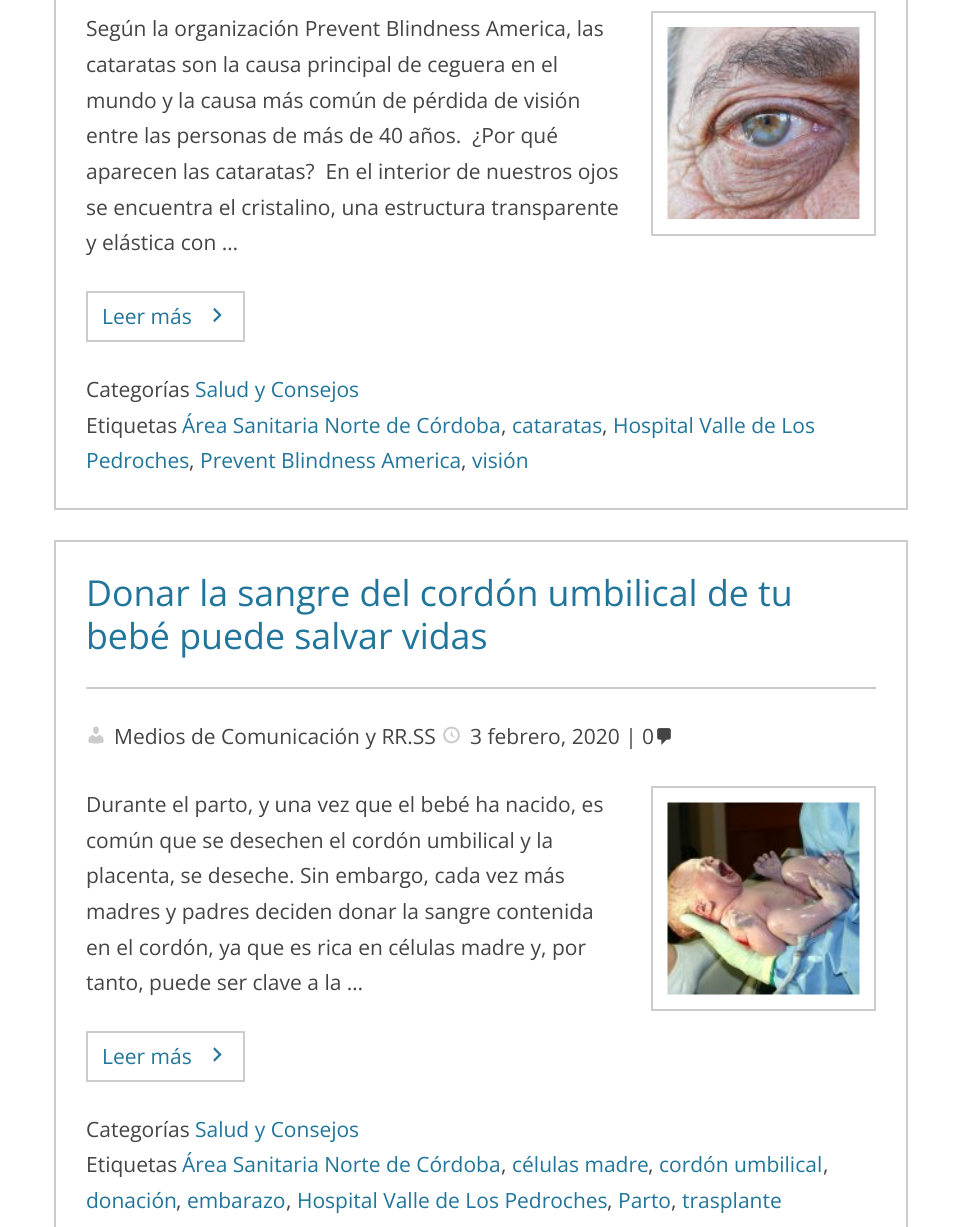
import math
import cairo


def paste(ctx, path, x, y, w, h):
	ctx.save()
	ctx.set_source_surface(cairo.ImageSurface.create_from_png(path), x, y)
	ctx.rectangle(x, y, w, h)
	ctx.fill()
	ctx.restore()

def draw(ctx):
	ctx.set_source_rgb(1, 1, 1)
	ctx.paint()
	ctx.rectangle(55, -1, 852, 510)
	ctx.set_source_rgb(0.8, 0.8, 0.8)
	ctx.stroke()
	ctx.select_font_face('Open Sans')
	ctx.set_font_size(21)
	ctx.set_source_rgb(0.267, 0.267, 0.267)
	for x, y, s in [
		(86, 36, 'Según la organización Prevent Blindness America, las'),
		(86, 72, 'cataratas son la causa principal de ceguera en el'),
		(86, 108, 'mundo y la causa más común de pérdida de visión'),
		(86, 143, 'entre las personas de más de 40 años.  ¿Por qué'),
		(86, 179, 'aparecen las cataratas?  En el interior de nuestros ojos'),
		(86, 215, 'se encuentra el cristalino, una estructura transparente'),
		(86, 250, 'y elástica con …'),
	]:
		ctx.move_to(x, y)
		ctx.show_text(s)
	ctx.rectangle(652, 12, 223, 223)
	ctx.set_source_rgb(0.8, 0.8, 0.8)
	ctx.stroke()
	paste(ctx, 'media/1.png', 667, 27, 193, 192)
	ctx.rectangle(87, 292, 157, 49)
	ctx.stroke()
	ctx.set_source_rgb(0.129, 0.459, 0.608)
	ctx.move_to(102, 324)
	ctx.show_text('Leer más')
	paste(ctx, 'media/2.png', 213, 307, 9, 16)
	ctx.set_source_rgb(0.267, 0.267, 0.267)
	ctx.move_to(86, 397)
	ctx.show_text('Categorías')
	ctx.set_source_rgb(0.129, 0.459, 0.608)
	ctx.move_to(195, 397)
	ctx.show_text('Salud y Consejos')
	ctx.set_source_rgb(0.267, 0.267, 0.267)
	ctx.move_to(86, 433)
	ctx.show_text('Etiquetas')
	ctx.set_source_rgb(0.129, 0.459, 0.608)
	ctx.move_to(182, 433)
	ctx.show_text('Área Sanitaria Norte de Córdoba')
	ctx.set_source_rgb(0.267, 0.267, 0.267)
	ctx.move_to(501, 433)
	ctx.show_text(',')
	ctx.set_source_rgb(0.129, 0.459, 0.608)
	ctx.move_to(512, 433)
	ctx.show_text('cataratas')
	ctx.set_source_rgb(0.267, 0.267, 0.267)
	ctx.move_to(602, 433)
	ctx.show_text(',')
	ctx.set_source_rgb(0.129, 0.459, 0.608)
	ctx.move_to(613, 433)
	ctx.show_text('Hospital Valle de Los')
	ctx.move_to(86, 468)
	ctx.show_text('Pedroches')
	ctx.set_source_rgb(0.267, 0.267, 0.267)
	ctx.move_to(189, 468)
	ctx.show_text(',')
	ctx.set_source_rgb(0.129, 0.459, 0.608)
	ctx.move_to(200, 468)
	ctx.show_text('Prevent Blindness America')
	ctx.set_source_rgb(0.267, 0.267, 0.267)
	ctx.move_to(461, 468)
	ctx.show_text(',')
	ctx.set_source_rgb(0.129, 0.459, 0.608)
	ctx.move_to(472, 468)
	ctx.show_text('visión')
	ctx.rectangle(55, 541, 852, 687)
	ctx.set_source_rgb(0.8, 0.8, 0.8)
	ctx.stroke()
	ctx.rectangle(86, 687, 790, 2)
	ctx.fill()
	ctx.set_font_size(35.75)
	ctx.set_source_rgb(0.129, 0.459, 0.608)
	ctx.move_to(86, 606)
	ctx.show_text('Donar la sangre del cordón umbilical de tu')
	ctx.move_to(86, 649)
	ctx.show_text('bebé puede salvar vidas')
	paste(ctx, 'media/3.png', 88, 726, 16, 18)
	ctx.set_font_size(21)
	ctx.set_source_rgb(0.267, 0.267, 0.267)
	ctx.move_to(114, 744)
	ctx.show_text('Medios de Comunicación y RR.SS')
	paste(ctx, 'media/4.png', 443, 726, 17, 18)
	ctx.move_to(470, 744)
	ctx.show_text('3 febrero, 2020 | 0')
	paste(ctx, 'media/5.png', 657, 728, 14, 17)
	for x, y, s in [
		(86, 812, 'Durante el parto, y una vez que el bebé ha nacido, es'),
		(86, 848, 'común que se desechen el cordón umbilical y la'),
		(86, 883, 'placenta, se deseche. Sin embargo, cada vez más'),
		(86, 919, 'madres y padres deciden donar la sangre contenida'),
		(86, 955, 'en el cordón, ya que es rica en células madre y, por'),
		(86, 990, 'tanto, puede ser clave a la …'),
	]:
		ctx.move_to(x, y)
		ctx.show_text(s)
	ctx.rectangle(652, 787, 223, 223)
	ctx.set_source_rgb(0.8, 0.8, 0.8)
	ctx.stroke()
	paste(ctx, 'media/6.png', 667, 802, 193, 193)
	ctx.rectangle(87, 1032, 157, 49)
	ctx.stroke()
	ctx.set_source_rgb(0.129, 0.459, 0.608)
	ctx.move_to(102, 1064)
	ctx.show_text('Leer más')
	paste(ctx, 'media/7.png', 213, 1047, 9, 15)
	ctx.set_source_rgb(0.267, 0.267, 0.267)
	ctx.move_to(86, 1137)
	ctx.show_text('Categorías')
	ctx.set_source_rgb(0.129, 0.459, 0.608)
	ctx.move_to(195, 1137)
	ctx.show_text('Salud y Consejos')
	ctx.set_source_rgb(0.267, 0.267, 0.267)
	ctx.move_to(86, 1172)
	ctx.show_text('Etiquetas')
	ctx.set_source_rgb(0.129, 0.459, 0.608)
	ctx.move_to(182, 1172)
	ctx.show_text('Área Sanitaria Norte de Córdoba')
	ctx.set_source_rgb(0.267, 0.267, 0.267)
	ctx.move_to(501, 1172)
	ctx.show_text(',')
	ctx.set_source_rgb(0.129, 0.459, 0.608)
	ctx.move_to(512, 1172)
	ctx.show_text('células madre')
	ctx.set_source_rgb(0.267, 0.267, 0.267)
	ctx.move_to(648, 1172)
	ctx.show_text(',')
	ctx.set_source_rgb(0.129, 0.459, 0.608)
	ctx.move_to(659, 1172)
	ctx.show_text('cordón umbilical')
	ctx.set_source_rgb(0.267, 0.267, 0.267)
	ctx.move_to(823, 1172)
	ctx.show_text(',')
	ctx.set_source_rgb(0.129, 0.459, 0.608)
	ctx.move_to(86, 1208)
	ctx.show_text('donación')
	ctx.set_source_rgb(0.267, 0.267, 0.267)
	ctx.move_to(176, 1208)
	ctx.show_text(',')
	ctx.set_source_rgb(0.129, 0.459, 0.608)
	ctx.move_to(187, 1208)
	ctx.show_text('embarazo')
	ctx.set_source_rgb(0.267, 0.267, 0.267)
	ctx.move_to(286, 1208)
	ctx.show_text(',')
	ctx.set_source_rgb(0.129, 0.459, 0.608)
	ctx.move_to(297, 1208)
	ctx.show_text('Hospital Valle de Los Pedroches')
	ctx.set_source_rgb(0.267, 0.267, 0.267)
	ctx.move_to(607, 1208)
	ctx.show_text(',')
	ctx.set_source_rgb(0.129, 0.459, 0.608)
	ctx.move_to(618, 1208)
	ctx.show_text('Parto')
	ctx.set_source_rgb(0.267, 0.267, 0.267)
	ctx.move_to(671, 1208)
	ctx.show_text(',')
	ctx.set_source_rgb(0.129, 0.459, 0.608)
	ctx.move_to(682, 1208)
	ctx.show_text('trasplante')


surface = cairo.ImageSurface(cairo.FORMAT_RGB24, 961, 1227)
ctx = cairo.Context(surface)
options = cairo.FontOptions()
options.set_hint_metrics(cairo.HINT_METRICS_OFF)
options.set_hint_style(cairo.HINT_STYLE_NONE)
ctx.set_font_options(options)
ctx.set_miter_limit(4)
draw(ctx)
surface.write_to_png('image.png')
